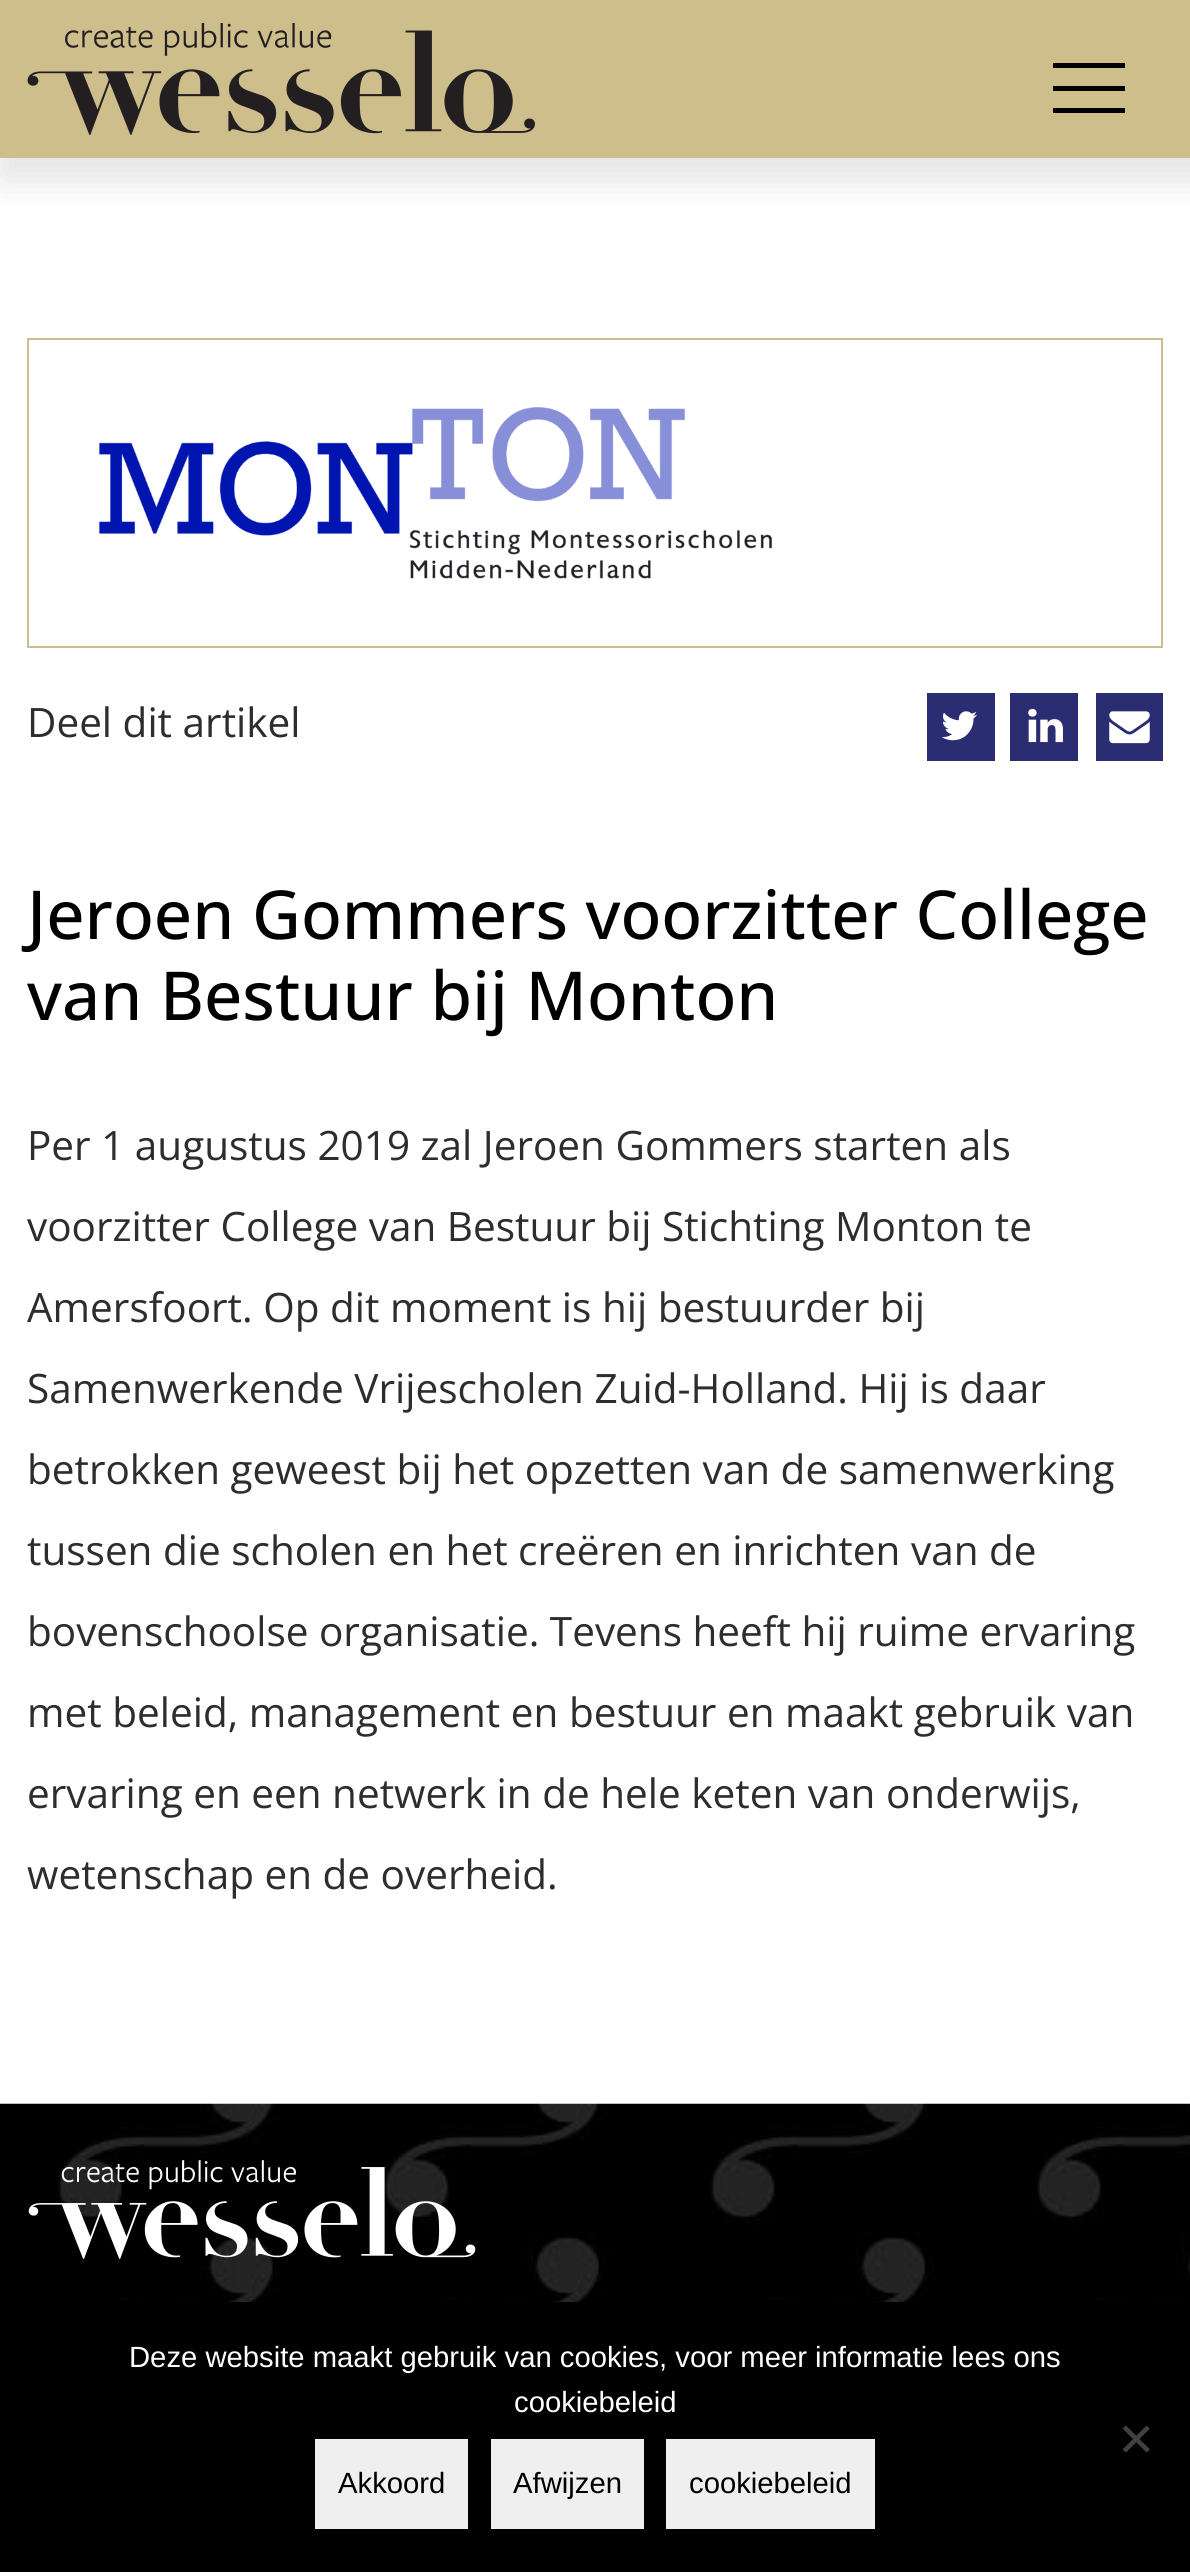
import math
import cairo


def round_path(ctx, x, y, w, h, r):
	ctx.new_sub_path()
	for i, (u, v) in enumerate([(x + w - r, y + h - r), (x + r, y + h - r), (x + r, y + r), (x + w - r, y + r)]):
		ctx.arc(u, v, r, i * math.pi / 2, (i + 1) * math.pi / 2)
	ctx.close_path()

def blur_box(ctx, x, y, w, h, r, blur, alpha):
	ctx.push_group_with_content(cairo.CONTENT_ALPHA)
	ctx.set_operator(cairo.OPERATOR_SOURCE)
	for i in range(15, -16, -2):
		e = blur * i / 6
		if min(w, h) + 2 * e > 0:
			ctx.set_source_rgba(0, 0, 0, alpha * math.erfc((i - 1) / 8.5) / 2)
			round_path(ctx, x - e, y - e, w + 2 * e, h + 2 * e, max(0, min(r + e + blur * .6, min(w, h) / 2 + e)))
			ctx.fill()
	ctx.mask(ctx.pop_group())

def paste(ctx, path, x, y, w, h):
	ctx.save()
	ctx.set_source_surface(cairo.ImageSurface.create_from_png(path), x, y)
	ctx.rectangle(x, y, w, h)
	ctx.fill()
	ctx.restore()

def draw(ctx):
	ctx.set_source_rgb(1, 1, 1)
	ctx.paint()
	ctx.set_source_rgb(0, 0, 0)
	blur_box(ctx, 0, 0, 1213, 180, 0, 17, 0.11)
	ctx.set_source_rgb(0.804, 0.745, 0.549)
	ctx.rectangle(0, 0, 1190, 158)
	ctx.fill()
	paste(ctx, 'media/1.png', 27, 23, 508, 112)
	ctx.set_source_rgb(0, 0, 0)
	ctx.rectangle(1053, 63, 72, 5)
	ctx.rectangle(1053, 86, 72, 5)
	ctx.rectangle(1053, 108, 72, 5)
	ctx.fill()
	ctx.rectangle(28, 339, 1134, 308)
	ctx.set_source_rgb(0.804, 0.745, 0.549)
	ctx.stroke()
	paste(ctx, 'media/2.png', 98, 407, 674, 172)
	ctx.select_font_face('Open Sans')
	ctx.set_font_size(40.5)
	ctx.set_source_rgb(0.176, 0.176, 0.176)
	ctx.move_to(27, 737)
	ctx.show_text('Deel dit artikel')
	ctx.set_source_rgb(0.165, 0.176, 0.443)
	ctx.rectangle(927, 693, 68, 68)
	ctx.fill()
	paste(ctx, 'media/3.png', 941, 711, 36, 30)
	ctx.rectangle(1010, 693, 68, 68)
	ctx.fill()
	paste(ctx, 'media/4.png', 1028, 708, 35, 35)
	ctx.rectangle(1096, 693, 67, 68)
	ctx.fill()
	paste(ctx, 'media/5.png', 1109, 711, 41, 33)
	ctx.select_font_face('Open Sans Medium')
	ctx.set_font_size(67.5)
	ctx.set_source_rgb(0, 0, 0)
	ctx.move_to(27, 939)
	ctx.show_text('Jeroen Gommers voorzitter College')
	ctx.move_to(27, 1020)
	ctx.show_text('van Bestuur bij Monton')
	ctx.select_font_face('Open Sans')
	ctx.set_font_size(40.5)
	ctx.set_source_rgb(0.176, 0.176, 0.176)
	for x, y, s in [
		(27, 1160, 'Per 1 augustus 2019 zal Jeroen Gommers starten als'),
		(27, 1241, 'voorzitter College van Bestuur bij Stichting Monton te'),
		(27, 1322, 'Amersfoort. Op dit moment is hij bestuurder bij'),
		(27, 1403, 'Samenwerkende Vrijescholen Zuid-Holland. Hij is daar'),
		(27, 1484, 'betrokken geweest bij het opzetten van de samenwerking'),
		(27, 1565, 'tussen die scholen en het creëren en inrichten van de'),
		(27, 1646, 'bovenschoolse organisatie. Tevens heeft hij ruime ervaring'),
		(27, 1727, 'met beleid, management en bestuur en maakt gebruik van'),
		(27, 1808, 'ervaring en een netwerk in de hele keten van onderwijs,'),
		(27, 1889, 'wetenschap en de overheid.'),
	]:
		ctx.move_to(x, y)
		ctx.show_text(s)
	paste(ctx, 'media/6.png', 0, 2103, 1190, 199)
	paste(ctx, 'media/7.png', 28, 2160, 448, 99)
	ctx.set_source_rgb(0, 0, 0)
	ctx.rectangle(0, 2302, 1190, 270)
	ctx.fill()
	ctx.select_font_face('Liberation Sans')
	ctx.set_font_size(29.25)
	ctx.set_source_rgb(1, 1, 1)
	ctx.move_to(129, 2367)
	ctx.show_text('Deze website maakt gebruik van cookies, voor meer informatie lees ons')
	ctx.move_to(514, 2412)
	ctx.show_text('cookiebeleid')
	ctx.set_source_rgb(0.251, 0.251, 0.251)
	ctx.new_path()
	ctx.move_to(1146.5, 2425.5)
	ctx.line_to(1150, 2428.5)
	ctx.line_to(1126, 2452.5)
	ctx.line_to(1122.5, 2449.5)
	ctx.close_path()
	ctx.fill()
	ctx.new_path()
	ctx.move_to(1122.5, 2428.5)
	ctx.line_to(1126, 2425.5)
	ctx.line_to(1150, 2449.5)
	ctx.line_to(1146.5, 2452.5)
	ctx.close_path()
	ctx.fill()
	ctx.set_source_rgb(0.937, 0.937, 0.937)
	ctx.rectangle(315, 2439, 153, 90)
	ctx.fill()
	ctx.set_source_rgb(0, 0, 0)
	ctx.move_to(338, 2493)
	ctx.show_text('Akkoord')
	ctx.set_source_rgb(0.937, 0.937, 0.937)
	ctx.rectangle(491, 2439, 153, 90)
	ctx.fill()
	ctx.set_source_rgb(0, 0, 0)
	ctx.move_to(513, 2493)
	ctx.show_text('Afwijzen')
	ctx.set_source_rgb(0.937, 0.937, 0.937)
	ctx.rectangle(666, 2439, 209, 90)
	ctx.fill()
	ctx.set_source_rgb(0, 0, 0)
	ctx.move_to(689, 2493)
	ctx.show_text('cookiebeleid')


surface = cairo.ImageSurface(cairo.FORMAT_RGB24, 1190, 2572)
ctx = cairo.Context(surface)
options = cairo.FontOptions()
options.set_hint_metrics(cairo.HINT_METRICS_OFF)
options.set_hint_style(cairo.HINT_STYLE_NONE)
ctx.set_font_options(options)
ctx.set_miter_limit(4)
draw(ctx)
surface.write_to_png('image.png')
